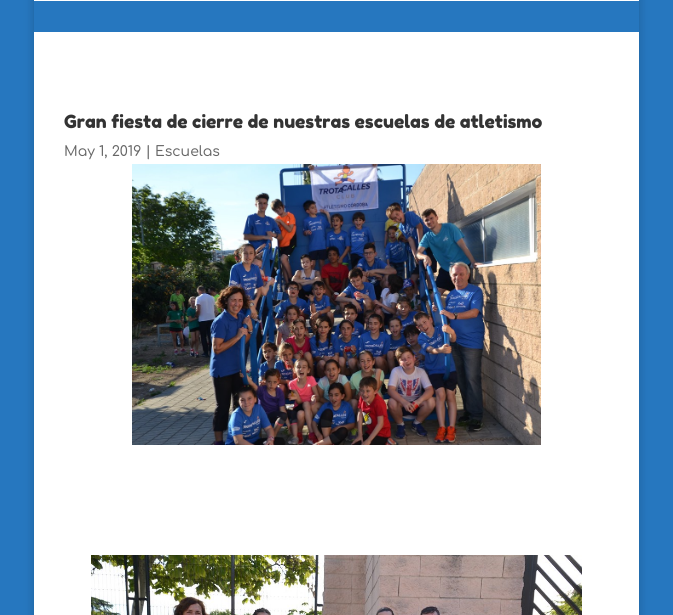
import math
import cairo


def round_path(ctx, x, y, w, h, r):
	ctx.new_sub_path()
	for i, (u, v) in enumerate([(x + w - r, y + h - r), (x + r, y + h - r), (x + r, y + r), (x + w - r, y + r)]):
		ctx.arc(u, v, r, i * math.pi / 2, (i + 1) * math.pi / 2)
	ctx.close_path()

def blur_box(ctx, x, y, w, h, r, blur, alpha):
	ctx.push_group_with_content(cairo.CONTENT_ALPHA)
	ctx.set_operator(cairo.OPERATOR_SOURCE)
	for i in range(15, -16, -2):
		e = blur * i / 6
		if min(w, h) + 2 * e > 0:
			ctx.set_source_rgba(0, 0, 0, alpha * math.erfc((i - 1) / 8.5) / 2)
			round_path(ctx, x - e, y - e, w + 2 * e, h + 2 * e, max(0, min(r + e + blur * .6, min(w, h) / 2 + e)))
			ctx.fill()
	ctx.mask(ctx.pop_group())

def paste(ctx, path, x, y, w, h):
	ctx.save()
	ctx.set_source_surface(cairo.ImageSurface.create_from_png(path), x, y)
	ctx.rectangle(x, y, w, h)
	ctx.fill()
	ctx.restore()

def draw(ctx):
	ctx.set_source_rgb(0.149, 0.467, 0.749)
	ctx.paint()
	ctx.save()
	ctx.set_fill_rule(cairo.FILL_RULE_EVEN_ODD)
	ctx.new_path()
	ctx.move_to(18, 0)
	ctx.line_to(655, 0)
	ctx.line_to(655, 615)
	ctx.line_to(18, 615)
	ctx.close_path()
	ctx.move_to(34, -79)
	ctx.line_to(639, -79)
	ctx.line_to(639, 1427)
	ctx.line_to(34, 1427)
	ctx.close_path()
	ctx.clip()
	ctx.set_source_rgb(0, 0, 0)
	blur_box(ctx, 34, -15, 605, 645, 0, 5, 0.2)
	ctx.restore()
	ctx.set_source_rgb(1, 1, 1)
	ctx.rectangle(34, 0, 605, 1)
	ctx.fill()
	ctx.rectangle(34, 32, 605, 583)
	ctx.fill()
	ctx.select_font_face('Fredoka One')
	ctx.set_font_size(18)
	ctx.set_source_rgb(0.2, 0.2, 0.2)
	ctx.move_to(64, 128)
	ctx.show_text('Gran fiesta de cierre de nuestras escuelas de atletismo')
	ctx.select_font_face('Comfortaa Medium')
	ctx.set_font_size(14)
	ctx.set_source_rgb(0.4, 0.4, 0.4)
	ctx.move_to(64, 156)
	ctx.show_text('May 1, 2019 | Escuelas')
	paste(ctx, 'media/1.png', 132, 164, 409, 281)
	paste(ctx, 'media/2.png', 91, 555, 491, 60)


surface = cairo.ImageSurface(cairo.FORMAT_RGB24, 673, 615)
ctx = cairo.Context(surface)
options = cairo.FontOptions()
options.set_hint_metrics(cairo.HINT_METRICS_OFF)
options.set_hint_style(cairo.HINT_STYLE_NONE)
ctx.set_font_options(options)
ctx.set_miter_limit(4)
draw(ctx)
surface.write_to_png('image.png')
